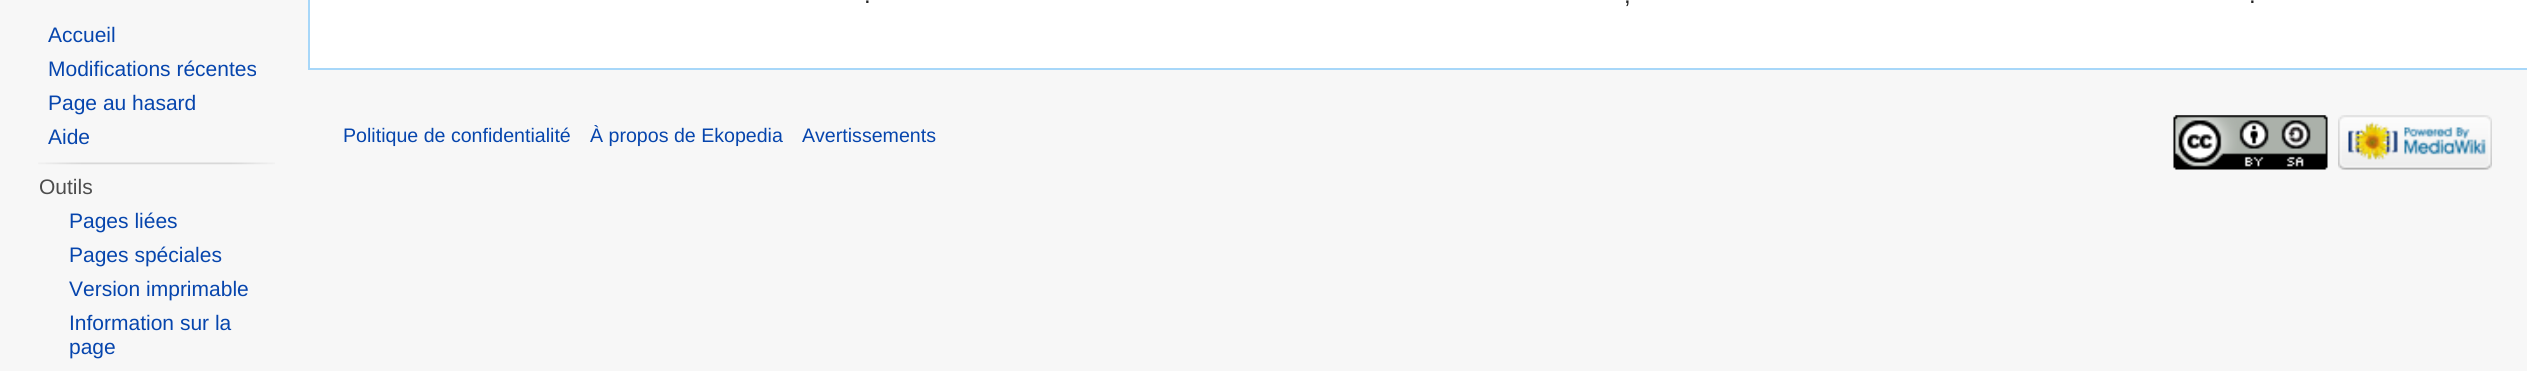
import math
import cairo


def paste(ctx, path, x, y, w, h):
	ctx.save()
	ctx.set_source_surface(cairo.ImageSurface.create_from_png(path), x, y)
	ctx.rectangle(x, y, w, h)
	ctx.fill()
	ctx.restore()

def draw(ctx):
	ctx.set_source_rgb(0.965, 0.965, 0.965)
	ctx.paint()
	ctx.set_source_rgb(1, 1, 1)
	ctx.rectangle(310, 0, 2217, 68)
	ctx.fill()
	ctx.set_source_rgb(0.655, 0.843, 0.976)
	ctx.rectangle(308, 68, 2219, 2)
	ctx.rectangle(308, 0, 2, 70)
	ctx.fill()
	ctx.select_font_face('Liberation Sans')
	ctx.set_font_size(24)
	ctx.set_source_rgb(0.145, 0.145, 0.145)
	for x, y, s in [
		(864, 3, '.'),
		(1624, 3, ','),
		(2249, 3, '.'),
	]:
		ctx.move_to(x, y)
		ctx.show_text(s)
	ctx.set_font_size(21)
	ctx.set_source_rgb(0.024, 0.271, 0.678)
	for x, y, s in [
		(48, 42, 'Accueil'),
		(48, 76, 'Modifications récentes'),
		(48, 110, 'Page au hasard'),
		(48, 144, 'Aide'),
	]:
		ctx.move_to(x, y)
		ctx.show_text(s)
	paste(ctx, 'media/1.png', 38, 162, 237, 3)
	ctx.set_source_rgb(0.302, 0.302, 0.302)
	ctx.move_to(39, 194)
	ctx.show_text('Outils')
	ctx.set_source_rgb(0.024, 0.271, 0.678)
	for x, y, s in [
		(69, 228, 'Pages liées'),
		(69, 262, 'Pages spéciales'),
		(69, 296, 'Version imprimable'),
		(69, 330, 'Information sur la'),
		(69, 354, 'page'),
	]:
		ctx.move_to(x, y)
		ctx.show_text(s)
	ctx.set_font_size(19.6)
	for x, y, s in [
		(343, 142, 'Politique de confidentialité'),
		(590, 142, 'À propos de Ekopedia'),
		(802, 142, 'Avertissements'),
	]:
		ctx.move_to(x, y)
		ctx.show_text(s)
	paste(ctx, 'media/2.png', 2173, 115, 155, 55)
	paste(ctx, 'media/3.png', 2338, 115, 154, 55)


surface = cairo.ImageSurface(cairo.FORMAT_RGB24, 2527, 371)
ctx = cairo.Context(surface)
options = cairo.FontOptions()
options.set_hint_metrics(cairo.HINT_METRICS_OFF)
options.set_hint_style(cairo.HINT_STYLE_NONE)
ctx.set_font_options(options)
ctx.set_miter_limit(4)
draw(ctx)
surface.write_to_png('image.png')
